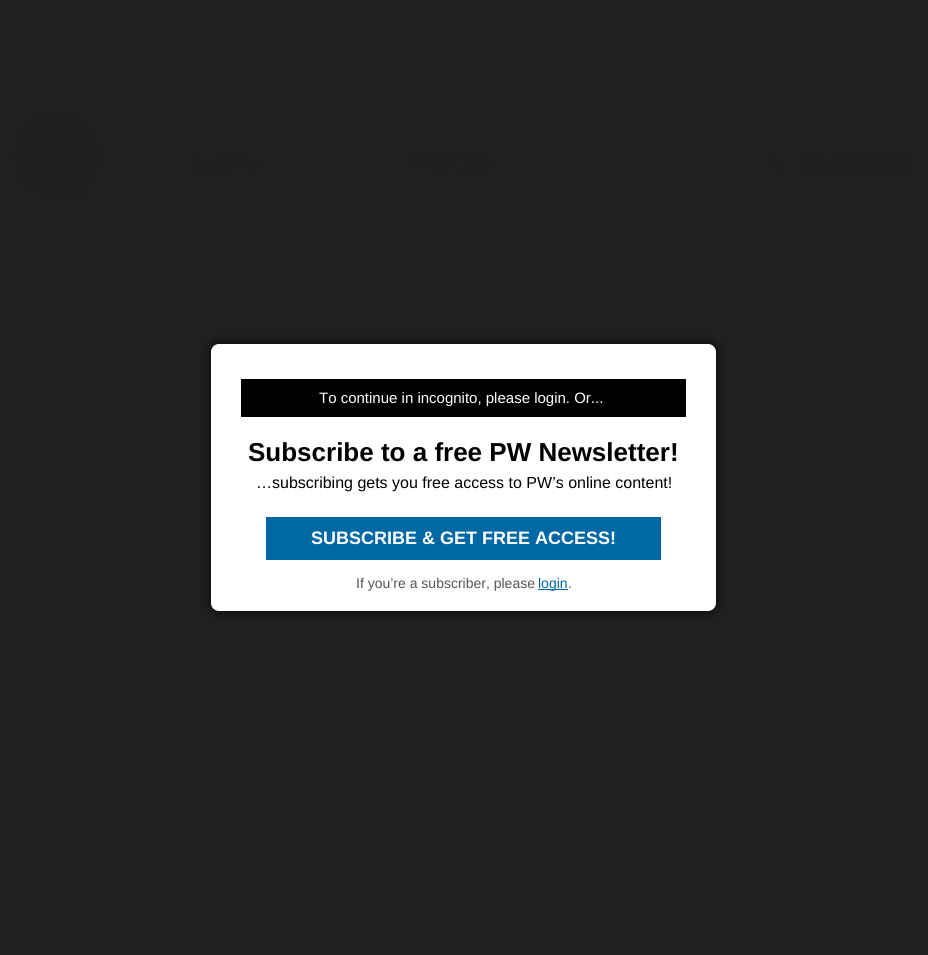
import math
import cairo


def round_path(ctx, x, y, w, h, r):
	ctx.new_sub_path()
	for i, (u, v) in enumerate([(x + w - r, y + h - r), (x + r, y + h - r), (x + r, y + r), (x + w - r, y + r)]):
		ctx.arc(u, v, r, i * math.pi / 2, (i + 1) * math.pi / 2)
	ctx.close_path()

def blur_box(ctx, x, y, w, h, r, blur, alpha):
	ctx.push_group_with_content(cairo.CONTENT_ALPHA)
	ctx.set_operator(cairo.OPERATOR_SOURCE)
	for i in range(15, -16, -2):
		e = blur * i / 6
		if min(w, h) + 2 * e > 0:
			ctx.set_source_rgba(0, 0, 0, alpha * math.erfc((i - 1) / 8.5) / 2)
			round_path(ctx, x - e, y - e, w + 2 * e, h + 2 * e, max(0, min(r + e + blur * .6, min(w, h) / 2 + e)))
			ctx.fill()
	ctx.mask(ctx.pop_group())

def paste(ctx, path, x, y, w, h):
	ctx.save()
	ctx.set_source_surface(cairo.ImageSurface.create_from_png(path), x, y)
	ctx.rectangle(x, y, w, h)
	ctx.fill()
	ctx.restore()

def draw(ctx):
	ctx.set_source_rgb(0.125, 0.125, 0.125)
	ctx.paint()
	paste(ctx, 'media/1.png', 0, 0, 928, 105)
	paste(ctx, 'media/2.png', 15, 113, 84, 84)
	paste(ctx, 'media/3.png', 100, 145, 434, 36)
	paste(ctx, 'media/4.png', 758, 146, 35, 36)
	paste(ctx, 'media/5.png', 802, 153, 24, 24)
	paste(ctx, 'media/6.png', 831, 153, 24, 24)
	paste(ctx, 'media/7.png', 860, 153, 24, 24)
	paste(ctx, 'media/8.png', 889, 153, 24, 24)
	paste(ctx, 'media/9.png', 192, 155, 70, 16)
	paste(ctx, 'media/10.png', 405, 156, 85, 15)
	paste(ctx, 'media/11.png', 456, 209, 16, 7)
	paste(ctx, 'media/12.png', 23, 292, 47, 26)
	paste(ctx, 'media/11.png', 456, 291, 16, 7)
	paste(ctx, 'media/11.png', 114, 582, 16, 7)
	ctx.set_source_rgb(0, 0, 0)
	blur_box(ctx, 211, 344, 505, 267, 8, 5, 1)
	ctx.set_source_rgb(1, 1, 1)
	round_path(ctx, 211, 344, 505, 267, 8)
	ctx.fill()
	ctx.set_source_rgb(0, 0, 0)
	ctx.rectangle(241, 379, 445, 38)
	ctx.fill()
	ctx.select_font_face('Liberation Sans')
	ctx.set_font_size(15)
	ctx.set_source_rgb(1, 1, 1)
	ctx.move_to(319, 403)
	ctx.show_text('To continue in incognito, please login. Or...')
	ctx.select_font_face('Liberation Sans', cairo.FONT_SLANT_NORMAL, cairo.FONT_WEIGHT_BOLD)
	ctx.set_font_size(26)
	ctx.set_source_rgb(0, 0, 0)
	ctx.move_to(248, 461)
	ctx.show_text('Subscribe to a free PW Newsletter!')
	ctx.select_font_face('Liberation Sans')
	ctx.set_font_size(16)
	ctx.move_to(256, 488)
	ctx.show_text('…subscribing gets you free access to PW’s online content!')
	ctx.set_source_rgb(0, 0.408, 0.647)
	ctx.rectangle(266, 517, 395, 43)
	ctx.fill()
	ctx.select_font_face('Liberation Sans', cairo.FONT_SLANT_NORMAL, cairo.FONT_WEIGHT_BOLD)
	ctx.set_font_size(18)
	ctx.set_source_rgb(1, 1, 1)
	ctx.move_to(311, 544)
	ctx.show_text('SUBSCRIBE & GET FREE ACCESS!')
	ctx.select_font_face('Liberation Sans')
	ctx.set_font_size(14)
	ctx.set_source_rgb(0.333, 0.333, 0.333)
	ctx.move_to(356, 588)
	ctx.show_text('If you’re a subscriber, please')
	ctx.set_source_rgb(0, 0.408, 0.647)
	ctx.rectangle(538, 589, 30, 1)
	ctx.fill()
	ctx.move_to(538, 588)
	ctx.show_text('login')
	ctx.set_source_rgb(0.333, 0.333, 0.333)
	ctx.move_to(568, 588)
	ctx.show_text('.')


surface = cairo.ImageSurface(cairo.FORMAT_RGB24, 928, 955)
ctx = cairo.Context(surface)
options = cairo.FontOptions()
options.set_hint_metrics(cairo.HINT_METRICS_OFF)
options.set_hint_style(cairo.HINT_STYLE_NONE)
ctx.set_font_options(options)
ctx.set_miter_limit(4)
draw(ctx)
surface.write_to_png('image.png')
